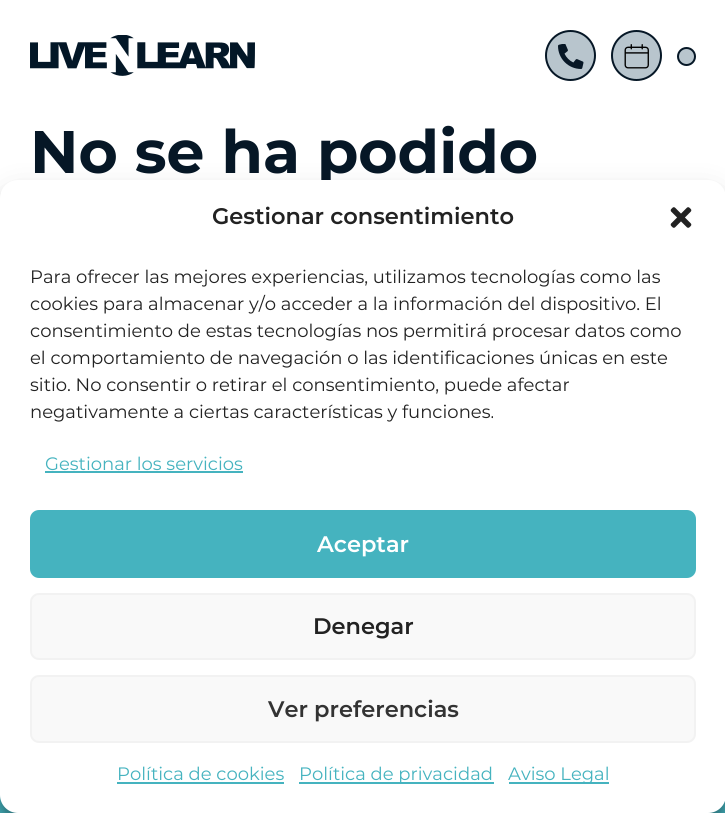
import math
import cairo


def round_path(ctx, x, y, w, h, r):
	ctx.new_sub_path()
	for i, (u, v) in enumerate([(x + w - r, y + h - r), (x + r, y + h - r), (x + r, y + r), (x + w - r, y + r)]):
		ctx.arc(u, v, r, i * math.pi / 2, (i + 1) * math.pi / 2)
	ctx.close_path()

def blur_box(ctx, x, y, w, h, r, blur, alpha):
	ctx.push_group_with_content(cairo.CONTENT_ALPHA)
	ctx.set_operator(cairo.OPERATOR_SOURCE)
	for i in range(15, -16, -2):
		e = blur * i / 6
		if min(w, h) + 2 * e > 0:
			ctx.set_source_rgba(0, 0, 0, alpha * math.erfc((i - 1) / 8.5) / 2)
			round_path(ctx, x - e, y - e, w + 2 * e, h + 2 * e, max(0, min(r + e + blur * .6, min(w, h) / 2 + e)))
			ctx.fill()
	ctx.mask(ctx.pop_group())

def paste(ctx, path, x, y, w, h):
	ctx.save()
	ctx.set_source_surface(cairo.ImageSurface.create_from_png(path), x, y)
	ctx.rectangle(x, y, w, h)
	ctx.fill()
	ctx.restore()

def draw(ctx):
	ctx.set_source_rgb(1, 1, 1)
	ctx.paint()
	paste(ctx, 'media/1.png', 30, 35, 225, 41)
	ctx.set_source_rgb(0.722, 0.773, 0.804)
	ctx.arc(570.5, 55.5, 24.5, 0, 2 * math.pi)
	ctx.fill_preserve()
	ctx.set_source_rgb(0.027, 0.09, 0.149)
	ctx.stroke()
	paste(ctx, 'media/2.png', 558, 44, 26, 25)
	ctx.set_source_rgb(0.722, 0.773, 0.804)
	ctx.arc(636.5, 55.5, 24.5, 0, 2 * math.pi)
	ctx.fill_preserve()
	ctx.set_source_rgb(0.027, 0.09, 0.149)
	ctx.stroke()
	paste(ctx, 'media/3.png', 624, 44, 25, 25)
	ctx.set_source_rgb(0.722, 0.773, 0.804)
	ctx.arc(686.5, 56.5, 8.5, 0, 2 * math.pi)
	ctx.fill_preserve()
	ctx.set_source_rgb(0.027, 0.09, 0.149)
	ctx.stroke()
	ctx.select_font_face('Montserrat', cairo.FONT_SLANT_NORMAL, cairo.FONT_WEIGHT_BOLD)
	ctx.set_font_size(60)
	ctx.move_to(30, 173)
	ctx.show_text('No se ha podido')
	ctx.set_source_rgb(0.271, 0.702, 0.749)
	ctx.rectangle(0, 795, 725, 18)
	ctx.fill()
	ctx.set_source_rgb(0, 0, 0)
	blur_box(ctx, 0, 189, 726, 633, 18, 4.5, 0.23)
	blur_box(ctx, 0, 195, 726, 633, 18, 15, 0.19)
	ctx.set_source_rgb(1, 1, 1)
	round_path(ctx, 0, 180, 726, 633, 18)
	ctx.fill()
	ctx.select_font_face('Montserrat SemiBold')
	ctx.set_font_size(22.5)
	ctx.set_source_rgb(0.133, 0.133, 0.133)
	ctx.move_to(212, 224)
	ctx.show_text('Gestionar consentimiento')
	paste(ctx, 'media/4.png', 670, 207, 22, 21)
	ctx.select_font_face('Montserrat')
	ctx.set_font_size(18)
	for x, y, s in [
		(30, 283, 'Para ofrecer las mejores experiencias, utilizamos tecnologías como las'),
		(30, 310, 'cookies para almacenar y/o acceder a la información del dispositivo. El'),
		(30, 337, 'consentimiento de estas tecnologías nos permitirá procesar datos como'),
		(30, 364, 'el comportamiento de navegación o las identificaciones únicas en este'),
		(30, 391, 'sitio. No consentir o retirar el consentimiento, puede afectar'),
		(30, 418, 'negativamente a ciertas características y funciones.'),
	]:
		ctx.move_to(x, y)
		ctx.show_text(s)
	ctx.set_source_rgb(0.271, 0.702, 0.749)
	ctx.move_to(45, 470)
	ctx.show_text('Gestionar los servicios')
	ctx.rectangle(45, 471, 198, 2)
	ctx.fill()
	round_path(ctx, 31, 511, 664, 66, 8)
	ctx.fill_preserve()
	ctx.stroke()
	ctx.select_font_face('Montserrat SemiBold')
	ctx.set_font_size(22.5)
	ctx.set_source_rgb(1, 1, 1)
	ctx.move_to(317, 552)
	ctx.show_text('Aceptar')
	ctx.set_source_rgb(0.976, 0.976, 0.976)
	round_path(ctx, 31, 594, 664, 65, 8)
	ctx.fill_preserve()
	ctx.set_source_rgb(0.949, 0.949, 0.949)
	ctx.stroke()
	ctx.set_source_rgb(0.133, 0.133, 0.133)
	ctx.move_to(313, 634)
	ctx.show_text('Denegar')
	ctx.set_source_rgb(0.976, 0.976, 0.976)
	round_path(ctx, 31, 676, 664, 66, 8)
	ctx.fill_preserve()
	ctx.set_source_rgb(0.949, 0.949, 0.949)
	ctx.stroke()
	ctx.set_source_rgb(0.2, 0.2, 0.2)
	ctx.move_to(268, 717)
	ctx.show_text('Ver preferencias')
	ctx.select_font_face('Montserrat')
	ctx.set_font_size(18)
	ctx.set_source_rgb(0.271, 0.702, 0.749)
	ctx.move_to(117, 780)
	ctx.show_text('Política de cookies')
	ctx.rectangle(117, 782, 167, 2)
	ctx.fill()
	ctx.rectangle(299, 782, 195, 2)
	ctx.fill()
	ctx.move_to(299, 780)
	ctx.show_text('Política de privacidad')
	ctx.rectangle(509, 782, 100, 2)
	ctx.fill()
	ctx.move_to(508, 780)
	ctx.show_text('Aviso Legal')


surface = cairo.ImageSurface(cairo.FORMAT_RGB24, 725, 813)
ctx = cairo.Context(surface)
options = cairo.FontOptions()
options.set_hint_metrics(cairo.HINT_METRICS_OFF)
options.set_hint_style(cairo.HINT_STYLE_NONE)
ctx.set_font_options(options)
ctx.set_miter_limit(4)
draw(ctx)
surface.write_to_png('image.png')
